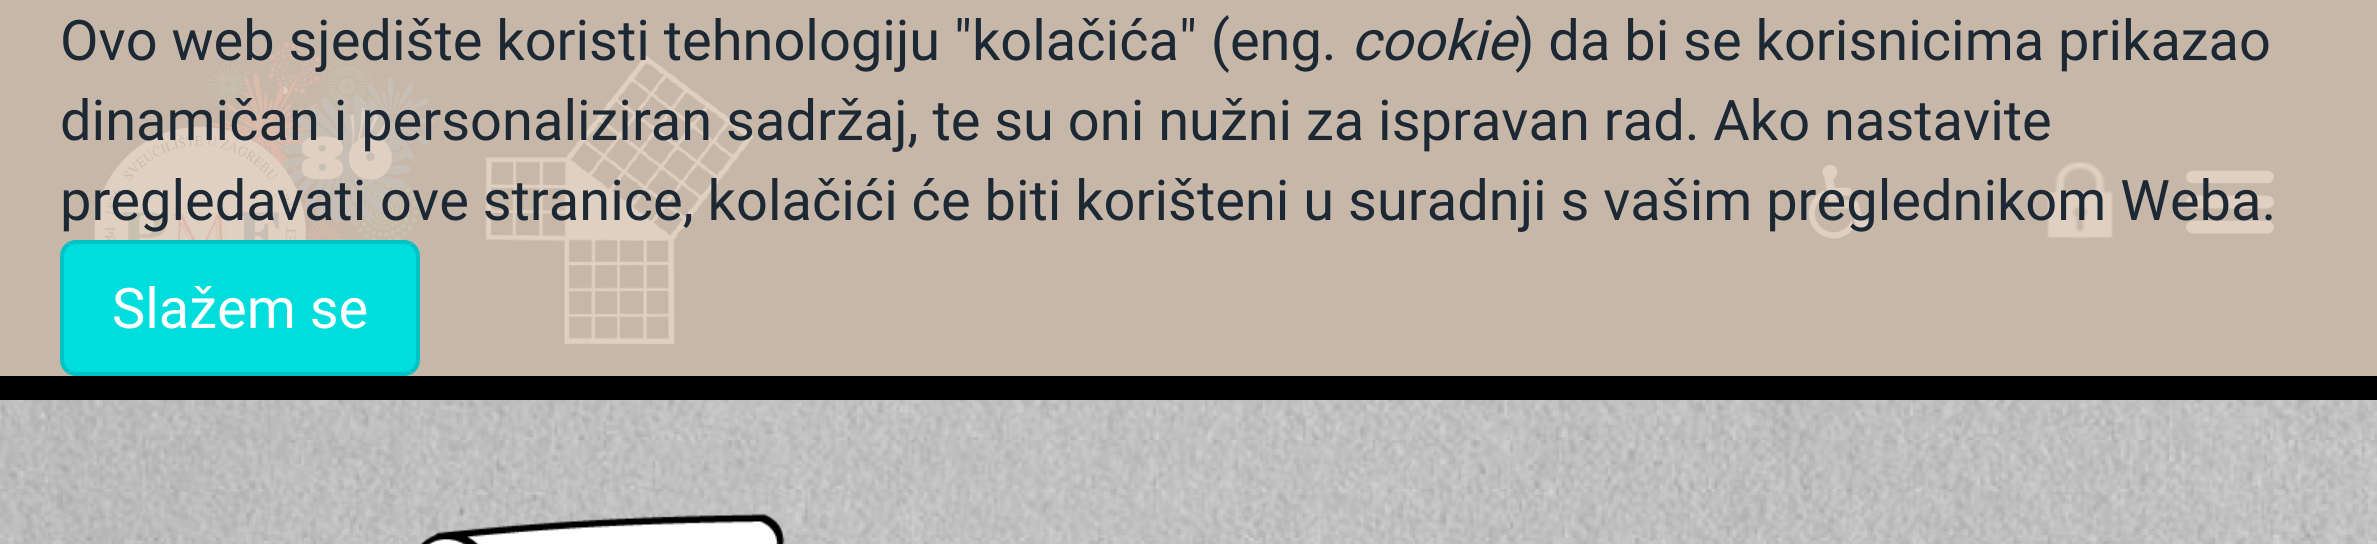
import math
import cairo


def round_path(ctx, x, y, w, h, r):
	ctx.new_sub_path()
	for i, (u, v) in enumerate([(x + w - r, y + h - r), (x + r, y + h - r), (x + r, y + r), (x + w - r, y + r)]):
		ctx.arc(u, v, r, i * math.pi / 2, (i + 1) * math.pi / 2)
	ctx.close_path()

def paste(ctx, path, x, y, w, h):
	ctx.save()
	ctx.set_source_surface(cairo.ImageSurface.create_from_png(path), x, y)
	ctx.rectangle(x, y, w, h)
	ctx.fill()
	ctx.restore()

def draw(ctx):
	ctx.set_source_rgb(1, 1, 1)
	ctx.paint()
	ctx.set_source_rgb(0, 0, 0)
	ctx.rectangle(0, 0, 2377, 400)
	ctx.fill()
	paste(ctx, 'media/1.png', 94, 42, 341, 198)
	paste(ctx, 'media/2.png', 485, 54, 270, 291)
	paste(ctx, 'media/3.png', 1790, 154, 97, 97)
	paste(ctx, 'media/4.png', 2047, 161, 66, 78)
	paste(ctx, 'media/5.png', 2186, 170, 88, 64)
	ctx.set_source_rgba(0.863, 0.796, 0.733, 0.9)
	ctx.rectangle(0, 0, 2377, 376)
	ctx.fill()
	ctx.select_font_face('Roboto')
	ctx.set_font_size(56)
	ctx.set_source_rgb(0.11, 0.157, 0.2)
	ctx.move_to(60, 60)
	ctx.show_text('Ovo web sjedište koristi tehnologiju "kolačića" (eng.')
	ctx.select_font_face('Roboto', cairo.FONT_SLANT_ITALIC)
	ctx.move_to(1351, 60)
	ctx.show_text('cookie')
	ctx.select_font_face('Roboto')
	for x, y, s in [
		(1515, 60, ') da bi se korisnicima prikazao'),
		(60, 140, 'dinamičan i personaliziran sadržaj, te su oni nužni za ispravan rad. Ako nastavite'),
		(60, 220, 'pregledavati ove stranice, kolačići će biti korišteni u suradnji s vašim preglednikom Weba.'),
	]:
		ctx.move_to(x, y)
		ctx.show_text(s)
	ctx.set_source_rgb(0, 0.867, 0.867)
	round_path(ctx, 62, 242, 356, 132, 14)
	ctx.fill_preserve()
	ctx.set_source_rgb(0, 0.765, 0.769)
	ctx.set_line_width(4)
	ctx.stroke()
	ctx.set_source_rgb(1, 1, 1)
	ctx.move_to(112, 328)
	ctx.show_text('Slažem se')
	paste(ctx, 'media/6.png', 0, 400, 2377, 144)


surface = cairo.ImageSurface(cairo.FORMAT_RGB24, 2377, 544)
ctx = cairo.Context(surface)
options = cairo.FontOptions()
options.set_hint_metrics(cairo.HINT_METRICS_OFF)
options.set_hint_style(cairo.HINT_STYLE_NONE)
ctx.set_font_options(options)
ctx.set_miter_limit(4)
draw(ctx)
surface.write_to_png('image.png')
